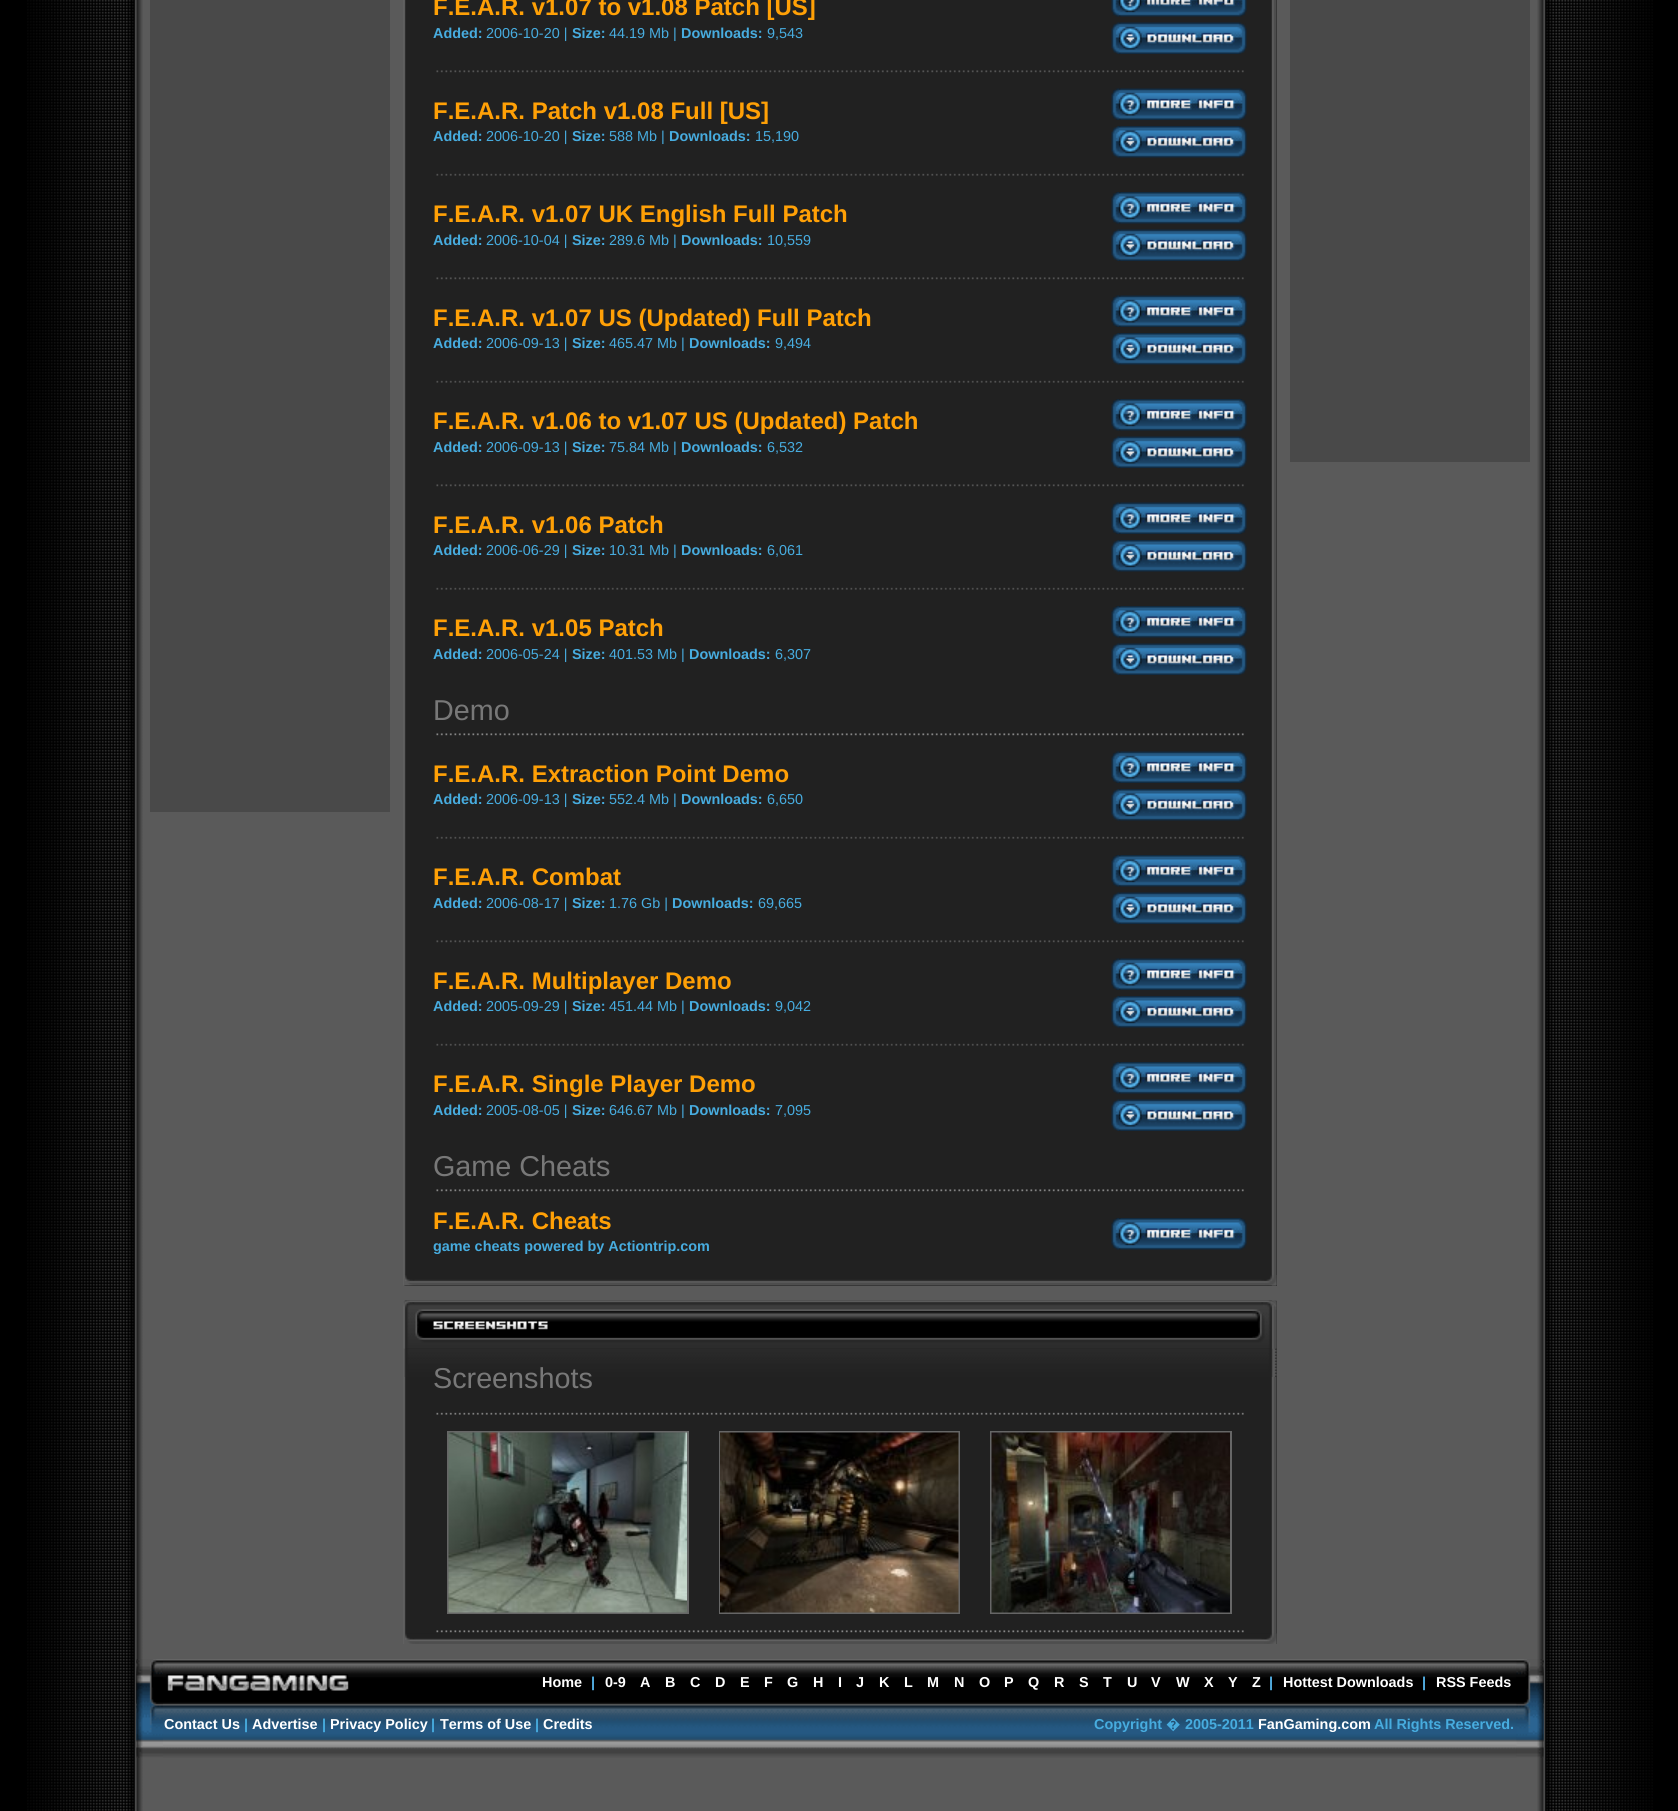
import math
import cairo


def paste(ctx, path, x, y, w, h):
	ctx.save()
	ctx.set_source_surface(cairo.ImageSurface.create_from_png(path), x, y)
	ctx.rectangle(x, y, w, h)
	ctx.fill()
	ctx.restore()

def draw(ctx):
	ctx.set_source_rgb(0, 0, 0)
	ctx.paint()
	paste(ctx, 'media/1.png', 27, 0, 1626, 1811)
	ctx.set_source_rgb(0.286, 0.286, 0.286)
	ctx.rectangle(150, 0, 240, 812)
	ctx.fill()
	ctx.set_source_rgb(0.133, 0.133, 0.133)
	ctx.rectangle(404, 0, 873, 1286)
	ctx.fill()
	paste(ctx, 'media/2.png', 403, 0, 874, 1286)
	ctx.select_font_face('Liberation Sans', cairo.FONT_SLANT_NORMAL, cairo.FONT_WEIGHT_BOLD)
	ctx.set_font_size(24)
	ctx.set_source_rgb(1, 0.627, 0.024)
	ctx.move_to(433, 15)
	ctx.show_text('F.E.A.R. v1.07 to v1.08 Patch [US]')
	ctx.set_font_size(14.4)
	ctx.set_source_rgb(0.278, 0.675, 0.875)
	ctx.move_to(433, 38)
	ctx.show_text('Added:')
	ctx.select_font_face('Liberation Sans')
	ctx.move_to(486, 38)
	ctx.show_text('2006-10-20 |')
	ctx.select_font_face('Liberation Sans', cairo.FONT_SLANT_NORMAL, cairo.FONT_WEIGHT_BOLD)
	ctx.move_to(572, 38)
	ctx.show_text('Size:')
	ctx.select_font_face('Liberation Sans')
	ctx.move_to(609, 38)
	ctx.show_text('44.19 Mb |')
	ctx.select_font_face('Liberation Sans', cairo.FONT_SLANT_NORMAL, cairo.FONT_WEIGHT_BOLD)
	ctx.move_to(681, 38)
	ctx.show_text('Downloads:')
	ctx.select_font_face('Liberation Sans')
	ctx.move_to(767, 38)
	ctx.show_text('9,543')
	paste(ctx, 'media/3.png', 1111, 0, 136, 17)
	paste(ctx, 'media/4.png', 1111, 22, 136, 32)
	paste(ctx, 'media/5.png', 436, 70, 808, 3)
	ctx.select_font_face('Liberation Sans', cairo.FONT_SLANT_NORMAL, cairo.FONT_WEIGHT_BOLD)
	ctx.set_font_size(24)
	ctx.set_source_rgb(1, 0.627, 0.024)
	ctx.move_to(433, 119)
	ctx.show_text('F.E.A.R. Patch v1.08 Full [US]')
	ctx.set_font_size(14.4)
	ctx.set_source_rgb(0.278, 0.675, 0.875)
	ctx.move_to(433, 141)
	ctx.show_text('Added:')
	ctx.select_font_face('Liberation Sans')
	ctx.move_to(486, 141)
	ctx.show_text('2006-10-20 |')
	ctx.select_font_face('Liberation Sans', cairo.FONT_SLANT_NORMAL, cairo.FONT_WEIGHT_BOLD)
	ctx.move_to(572, 141)
	ctx.show_text('Size:')
	ctx.select_font_face('Liberation Sans')
	ctx.move_to(609, 141)
	ctx.show_text('588 Mb |')
	ctx.select_font_face('Liberation Sans', cairo.FONT_SLANT_NORMAL, cairo.FONT_WEIGHT_BOLD)
	ctx.move_to(669, 141)
	ctx.show_text('Downloads:')
	ctx.select_font_face('Liberation Sans')
	ctx.move_to(755, 141)
	ctx.show_text('15,190')
	paste(ctx, 'media/6.png', 1111, 88, 136, 32)
	paste(ctx, 'media/7.png', 1111, 126, 136, 32)
	paste(ctx, 'media/8.png', 436, 173, 808, 3)
	ctx.select_font_face('Liberation Sans', cairo.FONT_SLANT_NORMAL, cairo.FONT_WEIGHT_BOLD)
	ctx.set_font_size(24)
	ctx.set_source_rgb(1, 0.627, 0.024)
	ctx.move_to(433, 222)
	ctx.show_text('F.E.A.R. v1.07 UK English Full Patch')
	ctx.set_font_size(14.4)
	ctx.set_source_rgb(0.278, 0.675, 0.875)
	ctx.move_to(433, 245)
	ctx.show_text('Added:')
	ctx.select_font_face('Liberation Sans')
	ctx.move_to(486, 245)
	ctx.show_text('2006-10-04 |')
	ctx.select_font_face('Liberation Sans', cairo.FONT_SLANT_NORMAL, cairo.FONT_WEIGHT_BOLD)
	ctx.move_to(572, 245)
	ctx.show_text('Size:')
	ctx.select_font_face('Liberation Sans')
	ctx.move_to(609, 245)
	ctx.show_text('289.6 Mb |')
	ctx.select_font_face('Liberation Sans', cairo.FONT_SLANT_NORMAL, cairo.FONT_WEIGHT_BOLD)
	ctx.move_to(681, 245)
	ctx.show_text('Downloads:')
	ctx.select_font_face('Liberation Sans')
	ctx.move_to(767, 245)
	ctx.show_text('10,559')
	paste(ctx, 'media/9.png', 1111, 192, 136, 32)
	paste(ctx, 'media/4.png', 1111, 229, 136, 32)
	paste(ctx, 'media/5.png', 436, 277, 808, 3)
	ctx.select_font_face('Liberation Sans', cairo.FONT_SLANT_NORMAL, cairo.FONT_WEIGHT_BOLD)
	ctx.set_font_size(24)
	ctx.set_source_rgb(1, 0.627, 0.024)
	ctx.move_to(433, 326)
	ctx.show_text('F.E.A.R. v1.07 US (Updated) Full Patch')
	ctx.set_font_size(14.4)
	ctx.set_source_rgb(0.278, 0.675, 0.875)
	ctx.move_to(433, 348)
	ctx.show_text('Added:')
	ctx.select_font_face('Liberation Sans')
	ctx.move_to(486, 348)
	ctx.show_text('2006-09-13 |')
	ctx.select_font_face('Liberation Sans', cairo.FONT_SLANT_NORMAL, cairo.FONT_WEIGHT_BOLD)
	ctx.move_to(572, 348)
	ctx.show_text('Size:')
	ctx.select_font_face('Liberation Sans')
	ctx.move_to(609, 348)
	ctx.show_text('465.47 Mb |')
	ctx.select_font_face('Liberation Sans', cairo.FONT_SLANT_NORMAL, cairo.FONT_WEIGHT_BOLD)
	ctx.move_to(689, 348)
	ctx.show_text('Downloads:')
	ctx.select_font_face('Liberation Sans')
	ctx.move_to(775, 348)
	ctx.show_text('9,494')
	paste(ctx, 'media/6.png', 1111, 295, 136, 32)
	paste(ctx, 'media/7.png', 1111, 333, 136, 32)
	paste(ctx, 'media/8.png', 436, 380, 808, 3)
	ctx.select_font_face('Liberation Sans', cairo.FONT_SLANT_NORMAL, cairo.FONT_WEIGHT_BOLD)
	ctx.set_font_size(24)
	ctx.set_source_rgb(1, 0.627, 0.024)
	ctx.move_to(433, 429)
	ctx.show_text('F.E.A.R. v1.06 to v1.07 US (Updated) Patch')
	ctx.set_font_size(14.4)
	ctx.set_source_rgb(0.278, 0.675, 0.875)
	ctx.move_to(433, 452)
	ctx.show_text('Added:')
	ctx.select_font_face('Liberation Sans')
	ctx.move_to(486, 452)
	ctx.show_text('2006-09-13 |')
	ctx.select_font_face('Liberation Sans', cairo.FONT_SLANT_NORMAL, cairo.FONT_WEIGHT_BOLD)
	ctx.move_to(572, 452)
	ctx.show_text('Size:')
	ctx.select_font_face('Liberation Sans')
	ctx.move_to(609, 452)
	ctx.show_text('75.84 Mb |')
	ctx.select_font_face('Liberation Sans', cairo.FONT_SLANT_NORMAL, cairo.FONT_WEIGHT_BOLD)
	ctx.move_to(681, 452)
	ctx.show_text('Downloads:')
	ctx.select_font_face('Liberation Sans')
	ctx.move_to(767, 452)
	ctx.show_text('6,532')
	paste(ctx, 'media/9.png', 1111, 399, 136, 32)
	paste(ctx, 'media/4.png', 1111, 436, 136, 32)
	paste(ctx, 'media/5.png', 436, 484, 808, 3)
	ctx.select_font_face('Liberation Sans', cairo.FONT_SLANT_NORMAL, cairo.FONT_WEIGHT_BOLD)
	ctx.set_font_size(24)
	ctx.set_source_rgb(1, 0.627, 0.024)
	ctx.move_to(433, 533)
	ctx.show_text('F.E.A.R. v1.06 Patch')
	ctx.set_font_size(14.4)
	ctx.set_source_rgb(0.278, 0.675, 0.875)
	ctx.move_to(433, 555)
	ctx.show_text('Added:')
	ctx.select_font_face('Liberation Sans')
	ctx.move_to(486, 555)
	ctx.show_text('2006-06-29 |')
	ctx.select_font_face('Liberation Sans', cairo.FONT_SLANT_NORMAL, cairo.FONT_WEIGHT_BOLD)
	ctx.move_to(572, 555)
	ctx.show_text('Size:')
	ctx.select_font_face('Liberation Sans')
	ctx.move_to(609, 555)
	ctx.show_text('10.31 Mb |')
	ctx.select_font_face('Liberation Sans', cairo.FONT_SLANT_NORMAL, cairo.FONT_WEIGHT_BOLD)
	ctx.move_to(681, 555)
	ctx.show_text('Downloads:')
	ctx.select_font_face('Liberation Sans')
	ctx.move_to(767, 555)
	ctx.show_text('6,061')
	paste(ctx, 'media/6.png', 1111, 502, 136, 32)
	paste(ctx, 'media/7.png', 1111, 540, 136, 32)
	paste(ctx, 'media/8.png', 436, 587, 808, 3)
	ctx.select_font_face('Liberation Sans', cairo.FONT_SLANT_NORMAL, cairo.FONT_WEIGHT_BOLD)
	ctx.set_font_size(24)
	ctx.set_source_rgb(1, 0.627, 0.024)
	ctx.move_to(433, 636)
	ctx.show_text('F.E.A.R. v1.05 Patch')
	ctx.set_font_size(14.4)
	ctx.set_source_rgb(0.278, 0.675, 0.875)
	ctx.move_to(433, 659)
	ctx.show_text('Added:')
	ctx.select_font_face('Liberation Sans')
	ctx.move_to(486, 659)
	ctx.show_text('2006-05-24 |')
	ctx.select_font_face('Liberation Sans', cairo.FONT_SLANT_NORMAL, cairo.FONT_WEIGHT_BOLD)
	ctx.move_to(572, 659)
	ctx.show_text('Size:')
	ctx.select_font_face('Liberation Sans')
	ctx.move_to(609, 659)
	ctx.show_text('401.53 Mb |')
	ctx.select_font_face('Liberation Sans', cairo.FONT_SLANT_NORMAL, cairo.FONT_WEIGHT_BOLD)
	ctx.move_to(689, 659)
	ctx.show_text('Downloads:')
	ctx.select_font_face('Liberation Sans')
	ctx.move_to(775, 659)
	ctx.show_text('6,307')
	paste(ctx, 'media/9.png', 1111, 606, 136, 32)
	paste(ctx, 'media/4.png', 1111, 643, 136, 32)
	ctx.set_font_size(28.75)
	ctx.set_source_rgb(0.471, 0.471, 0.471)
	ctx.move_to(433, 720)
	ctx.show_text('Demo')
	paste(ctx, 'media/10.png', 436, 733, 808, 3)
	ctx.select_font_face('Liberation Sans', cairo.FONT_SLANT_NORMAL, cairo.FONT_WEIGHT_BOLD)
	ctx.set_font_size(24)
	ctx.set_source_rgb(1, 0.627, 0.024)
	ctx.move_to(433, 782)
	ctx.show_text('F.E.A.R. Extraction Point Demo')
	ctx.set_font_size(14.4)
	ctx.set_source_rgb(0.278, 0.675, 0.875)
	ctx.move_to(433, 804)
	ctx.show_text('Added:')
	ctx.select_font_face('Liberation Sans')
	ctx.move_to(486, 804)
	ctx.show_text('2006-09-13 |')
	ctx.select_font_face('Liberation Sans', cairo.FONT_SLANT_NORMAL, cairo.FONT_WEIGHT_BOLD)
	ctx.move_to(572, 804)
	ctx.show_text('Size:')
	ctx.select_font_face('Liberation Sans')
	ctx.move_to(609, 804)
	ctx.show_text('552.4 Mb |')
	ctx.select_font_face('Liberation Sans', cairo.FONT_SLANT_NORMAL, cairo.FONT_WEIGHT_BOLD)
	ctx.move_to(681, 804)
	ctx.show_text('Downloads:')
	ctx.select_font_face('Liberation Sans')
	ctx.move_to(767, 804)
	ctx.show_text('6,650')
	paste(ctx, 'media/6.png', 1111, 751, 136, 32)
	paste(ctx, 'media/7.png', 1111, 789, 136, 32)
	paste(ctx, 'media/8.png', 436, 836, 808, 3)
	ctx.select_font_face('Liberation Sans', cairo.FONT_SLANT_NORMAL, cairo.FONT_WEIGHT_BOLD)
	ctx.set_font_size(24)
	ctx.set_source_rgb(1, 0.627, 0.024)
	ctx.move_to(433, 885)
	ctx.show_text('F.E.A.R. Combat')
	ctx.set_font_size(14.4)
	ctx.set_source_rgb(0.278, 0.675, 0.875)
	ctx.move_to(433, 908)
	ctx.show_text('Added:')
	ctx.select_font_face('Liberation Sans')
	ctx.move_to(486, 908)
	ctx.show_text('2006-08-17 |')
	ctx.select_font_face('Liberation Sans', cairo.FONT_SLANT_NORMAL, cairo.FONT_WEIGHT_BOLD)
	ctx.move_to(572, 908)
	ctx.show_text('Size:')
	ctx.select_font_face('Liberation Sans')
	ctx.move_to(609, 908)
	ctx.show_text('1.76 Gb |')
	ctx.select_font_face('Liberation Sans', cairo.FONT_SLANT_NORMAL, cairo.FONT_WEIGHT_BOLD)
	ctx.move_to(672, 908)
	ctx.show_text('Downloads:')
	ctx.select_font_face('Liberation Sans')
	ctx.move_to(758, 908)
	ctx.show_text('69,665')
	paste(ctx, 'media/9.png', 1111, 855, 136, 32)
	paste(ctx, 'media/4.png', 1111, 892, 136, 32)
	paste(ctx, 'media/5.png', 436, 940, 808, 3)
	ctx.select_font_face('Liberation Sans', cairo.FONT_SLANT_NORMAL, cairo.FONT_WEIGHT_BOLD)
	ctx.set_font_size(24)
	ctx.set_source_rgb(1, 0.627, 0.024)
	ctx.move_to(433, 989)
	ctx.show_text('F.E.A.R. Multiplayer Demo')
	ctx.set_font_size(14.4)
	ctx.set_source_rgb(0.278, 0.675, 0.875)
	ctx.move_to(433, 1011)
	ctx.show_text('Added:')
	ctx.select_font_face('Liberation Sans')
	ctx.move_to(486, 1011)
	ctx.show_text('2005-09-29 |')
	ctx.select_font_face('Liberation Sans', cairo.FONT_SLANT_NORMAL, cairo.FONT_WEIGHT_BOLD)
	ctx.move_to(572, 1011)
	ctx.show_text('Size:')
	ctx.select_font_face('Liberation Sans')
	ctx.move_to(609, 1011)
	ctx.show_text('451.44 Mb |')
	ctx.select_font_face('Liberation Sans', cairo.FONT_SLANT_NORMAL, cairo.FONT_WEIGHT_BOLD)
	ctx.move_to(689, 1011)
	ctx.show_text('Downloads:')
	ctx.select_font_face('Liberation Sans')
	ctx.move_to(775, 1011)
	ctx.show_text('9,042')
	paste(ctx, 'media/6.png', 1111, 958, 136, 32)
	paste(ctx, 'media/7.png', 1111, 996, 136, 32)
	paste(ctx, 'media/8.png', 436, 1043, 808, 3)
	ctx.select_font_face('Liberation Sans', cairo.FONT_SLANT_NORMAL, cairo.FONT_WEIGHT_BOLD)
	ctx.set_font_size(24)
	ctx.set_source_rgb(1, 0.627, 0.024)
	ctx.move_to(433, 1092)
	ctx.show_text('F.E.A.R. Single Player Demo')
	ctx.set_font_size(14.4)
	ctx.set_source_rgb(0.278, 0.675, 0.875)
	ctx.move_to(433, 1115)
	ctx.show_text('Added:')
	ctx.select_font_face('Liberation Sans')
	ctx.move_to(486, 1115)
	ctx.show_text('2005-08-05 |')
	ctx.select_font_face('Liberation Sans', cairo.FONT_SLANT_NORMAL, cairo.FONT_WEIGHT_BOLD)
	ctx.move_to(572, 1115)
	ctx.show_text('Size:')
	ctx.select_font_face('Liberation Sans')
	ctx.move_to(609, 1115)
	ctx.show_text('646.67 Mb |')
	ctx.select_font_face('Liberation Sans', cairo.FONT_SLANT_NORMAL, cairo.FONT_WEIGHT_BOLD)
	ctx.move_to(689, 1115)
	ctx.show_text('Downloads:')
	ctx.select_font_face('Liberation Sans')
	ctx.move_to(775, 1115)
	ctx.show_text('7,095')
	paste(ctx, 'media/9.png', 1111, 1062, 136, 32)
	paste(ctx, 'media/4.png', 1111, 1099, 136, 32)
	ctx.set_font_size(28.75)
	ctx.set_source_rgb(0.471, 0.471, 0.471)
	ctx.move_to(433, 1176)
	ctx.show_text('Game Cheats')
	paste(ctx, 'media/10.png', 436, 1189, 808, 3)
	ctx.select_font_face('Liberation Sans', cairo.FONT_SLANT_NORMAL, cairo.FONT_WEIGHT_BOLD)
	ctx.set_font_size(24)
	ctx.set_source_rgb(1, 0.627, 0.024)
	ctx.move_to(433, 1229)
	ctx.show_text('F.E.A.R. Cheats')
	ctx.set_font_size(14.4)
	ctx.set_source_rgb(0.278, 0.675, 0.875)
	ctx.move_to(433, 1251)
	ctx.show_text('game cheats powered by Actiontrip.com')
	paste(ctx, 'media/9.png', 1111, 1218, 136, 32)
	paste(ctx, 'media/11.png', 404, 1275, 873, 11)
	ctx.set_source_rgb(0.133, 0.133, 0.133)
	ctx.rectangle(1276, 1301, 1, 343)
	ctx.fill()
	paste(ctx, 'media/12.png', 403, 1300, 874, 344)
	paste(ctx, 'media/14.png', 404, 1348, 873, 29)
	paste(ctx, 'media/13.png', 403, 1300, 874, 49)
	ctx.select_font_face('Liberation Sans')
	ctx.set_font_size(28.75)
	ctx.set_source_rgb(0.471, 0.471, 0.471)
	ctx.move_to(433, 1388)
	ctx.show_text('Screenshots')
	paste(ctx, 'media/15.png', 436, 1412, 808, 3)
	ctx.rectangle(448, 1432, 240, 181)
	ctx.set_source_rgb(0.4, 0.4, 0.4)
	ctx.stroke()
	paste(ctx, 'media/16.png', 448, 1432, 239, 181)
	ctx.rectangle(720, 1432, 239, 181)
	ctx.stroke()
	paste(ctx, 'media/17.png', 720, 1432, 239, 181)
	ctx.rectangle(991, 1432, 240, 181)
	ctx.stroke()
	paste(ctx, 'media/18.png', 991, 1432, 239, 181)
	paste(ctx, 'media/10.png', 436, 1630, 808, 3)
	paste(ctx, 'media/19.png', 405, 1633, 872, 11)
	ctx.set_source_rgb(0.286, 0.286, 0.286)
	ctx.rectangle(1290, 0, 240, 462)
	ctx.fill()
	paste(ctx, 'media/20.png', 136, 1659, 1408, 99)
	paste(ctx, 'media/21.png', 136, 1659, 27, 99)
	paste(ctx, 'media/22.png', 166, 1674, 183, 17)
	ctx.select_font_face('Liberation Sans', cairo.FONT_SLANT_NORMAL, cairo.FONT_WEIGHT_BOLD)
	ctx.set_font_size(14.4)
	ctx.set_source_rgb(1, 1, 1)
	ctx.move_to(542, 1687)
	ctx.show_text('Home')
	ctx.set_source_rgb(0.329, 0.698, 0.91)
	ctx.move_to(591, 1687)
	ctx.show_text('|')
	ctx.set_source_rgb(1, 1, 1)
	for x, y, s in [
		(605, 1687, '0-9'),
		(640, 1687, 'A'),
		(665, 1687, 'B'),
		(690, 1687, 'C'),
		(715, 1687, 'D'),
		(740, 1687, 'E'),
		(764, 1687, 'F'),
		(787, 1687, 'G'),
		(813, 1687, 'H'),
		(838, 1687, 'I'),
		(856, 1687, 'J'),
		(879, 1687, 'K'),
		(904, 1687, 'L'),
		(927, 1687, 'M'),
		(954, 1687, 'N'),
		(979, 1687, 'O'),
		(1004, 1687, 'P'),
		(1028, 1687, 'Q'),
		(1054, 1687, 'R'),
		(1079, 1687, 'S'),
		(1103, 1687, 'T'),
		(1127, 1687, 'U'),
		(1151, 1687, 'V'),
		(1176, 1687, 'W'),
		(1204, 1687, 'X'),
		(1228, 1687, 'Y'),
		(1252, 1687, 'Z'),
	]:
		ctx.move_to(x, y)
		ctx.show_text(s)
	ctx.set_source_rgb(0.329, 0.698, 0.91)
	ctx.move_to(1269, 1687)
	ctx.show_text('|')
	ctx.set_source_rgb(1, 1, 1)
	ctx.move_to(1283, 1687)
	ctx.show_text('Hottest Downloads')
	ctx.set_source_rgb(0.329, 0.698, 0.91)
	ctx.move_to(1422, 1687)
	ctx.show_text('|')
	ctx.set_source_rgb(1, 1, 1)
	ctx.move_to(1436, 1687)
	ctx.show_text('RSS Feeds')
	paste(ctx, 'media/23.png', 1516, 1659, 28, 99)
	ctx.move_to(164, 1729)
	ctx.show_text('Contact Us')
	ctx.set_source_rgb(0.278, 0.675, 0.875)
	ctx.move_to(244, 1729)
	ctx.show_text('|')
	ctx.set_source_rgb(1, 1, 1)
	ctx.move_to(252, 1729)
	ctx.show_text('Advertise')
	ctx.set_source_rgb(0.278, 0.675, 0.875)
	ctx.move_to(322, 1729)
	ctx.show_text('|')
	ctx.set_source_rgb(1, 1, 1)
	ctx.move_to(330, 1729)
	ctx.show_text('Privacy Policy')
	ctx.set_source_rgb(0.278, 0.675, 0.875)
	ctx.move_to(431, 1729)
	ctx.show_text('|')
	ctx.set_source_rgb(1, 1, 1)
	ctx.move_to(440, 1729)
	ctx.show_text('Terms of Use')
	ctx.set_source_rgb(0.278, 0.675, 0.875)
	ctx.move_to(535, 1729)
	ctx.show_text('|')
	ctx.set_source_rgb(1, 1, 1)
	ctx.move_to(543, 1729)
	ctx.show_text('Credits')
	ctx.set_source_rgb(0.278, 0.675, 0.875)
	ctx.move_to(1094, 1729)
	ctx.show_text('Copyright')
	ctx.select_font_face('Noto Sans', cairo.FONT_SLANT_NORMAL, cairo.FONT_WEIGHT_BOLD)
	ctx.move_to(1166, 1729)
	ctx.show_text('�')
	ctx.select_font_face('Liberation Sans', cairo.FONT_SLANT_NORMAL, cairo.FONT_WEIGHT_BOLD)
	ctx.move_to(1185, 1729)
	ctx.show_text('2005-2011')
	ctx.set_source_rgb(1, 1, 1)
	ctx.move_to(1258, 1729)
	ctx.show_text('FanGaming.com')
	ctx.set_source_rgb(0.278, 0.675, 0.875)
	ctx.move_to(1374, 1729)
	ctx.show_text('All Rights Reserved.')


surface = cairo.ImageSurface(cairo.FORMAT_RGB24, 1678, 1811)
ctx = cairo.Context(surface)
options = cairo.FontOptions()
options.set_hint_metrics(cairo.HINT_METRICS_OFF)
options.set_hint_style(cairo.HINT_STYLE_NONE)
ctx.set_font_options(options)
ctx.set_miter_limit(4)
draw(ctx)
surface.write_to_png('image.png')
